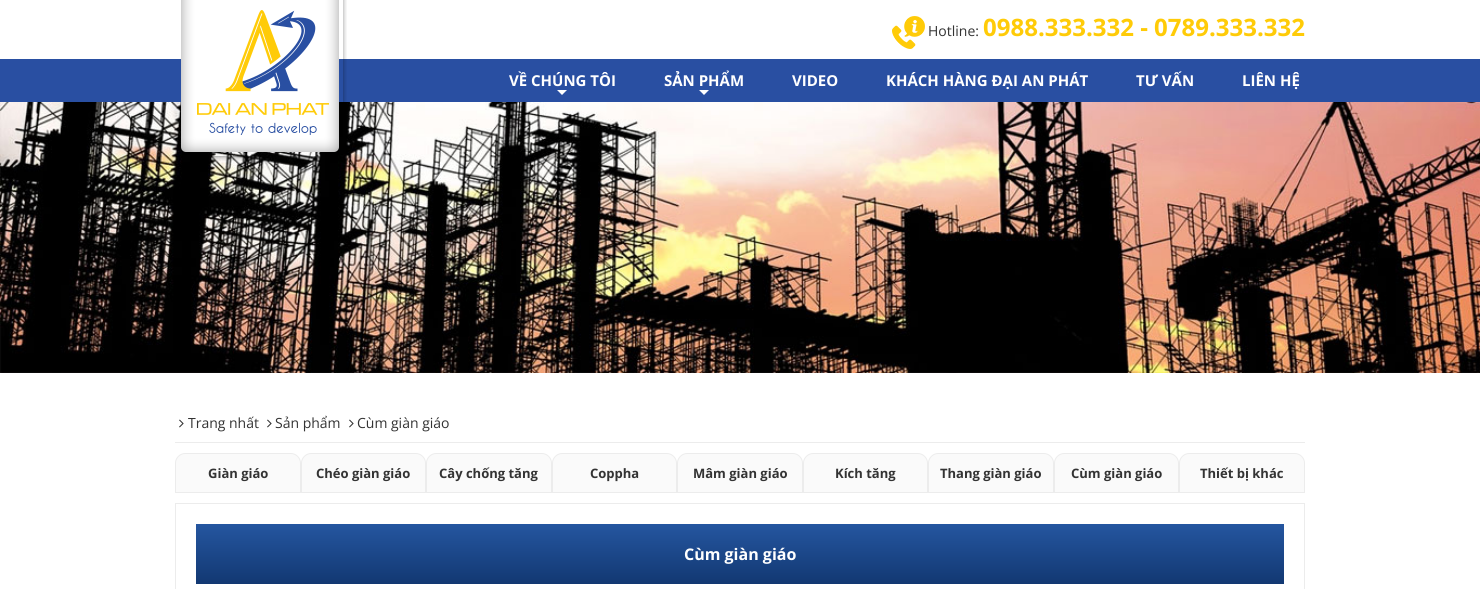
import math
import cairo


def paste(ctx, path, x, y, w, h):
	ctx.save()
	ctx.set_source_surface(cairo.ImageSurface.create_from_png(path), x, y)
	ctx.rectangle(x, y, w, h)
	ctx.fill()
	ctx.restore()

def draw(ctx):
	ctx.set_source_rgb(1, 1, 1)
	ctx.paint()
	ctx.set_source_rgb(0.161, 0.31, 0.635)
	ctx.rectangle(0, 59, 1480, 43)
	ctx.fill()
	paste(ctx, 'media/4.png', 0, 102, 1480, 271)
	paste(ctx, 'media/1.png', 181, 0, 166, 161)
	paste(ctx, 'media/2.png', 197, 10, 132, 125)
	paste(ctx, 'media/3.png', 892, 16, 33, 33)
	ctx.select_font_face('Open Sans')
	ctx.set_font_size(14)
	ctx.set_source_rgb(0.2, 0.2, 0.2)
	ctx.move_to(928, 36)
	ctx.show_text('Hotline:')
	ctx.select_font_face('Open Sans', cairo.FONT_SLANT_NORMAL, cairo.FONT_WEIGHT_BOLD)
	ctx.set_font_size(24)
	ctx.set_source_rgb(1, 0.796, 0.031)
	ctx.move_to(983, 36)
	ctx.show_text('0988.333.332 - 0789.333.332')
	ctx.set_font_size(15)
	ctx.set_source_rgb(1, 1, 1)
	ctx.move_to(509, 86)
	ctx.show_text('VỀ CHÚNG TÔI')
	ctx.new_path()
	ctx.move_to(557, 90)
	ctx.line_to(567, 90)
	ctx.line_to(562, 95)
	ctx.close_path()
	ctx.fill()
	ctx.move_to(664, 86)
	ctx.show_text('SẢN PHẨM')
	ctx.new_path()
	ctx.move_to(699, 90)
	ctx.line_to(709, 90)
	ctx.line_to(704, 95)
	ctx.close_path()
	ctx.fill()
	for x, y, s in [
		(792, 86, 'VIDEO'),
		(886, 86, 'KHÁCH HÀNG ĐẠI AN PHÁT'),
		(1136, 86, 'TƯ VẤN'),
		(1242, 86, 'LIÊN HỆ'),
	]:
		ctx.move_to(x, y)
		ctx.show_text(s)
	ctx.set_source_rgb(0.922, 0.922, 0.922)
	ctx.rectangle(175, 442, 1130, 1)
	ctx.fill()
	paste(ctx, 'media/5.png', 179, 419, 5, 9)
	ctx.select_font_face('Open Sans')
	ctx.set_font_size(14)
	ctx.set_source_rgb(0.2, 0.2, 0.2)
	ctx.move_to(188, 428)
	ctx.show_text('Trang nhất')
	paste(ctx, 'media/5.png', 267, 419, 5, 9)
	ctx.move_to(275, 428)
	ctx.show_text('Sản phẩm')
	paste(ctx, 'media/5.png', 349, 419, 5, 9)
	ctx.move_to(357, 428)
	ctx.show_text('Cùm giàn giáo')
	ctx.set_source_rgb(0.98, 0.98, 0.98)
	ctx.new_path()
	ctx.move_to(185, 453.5)
	ctx.line_to(291, 453.5)
	ctx.curve_to(296, 453.5, 300.5, 458, 300.5, 463)
	ctx.line_to(300.5, 492.5)
	ctx.line_to(175.5, 492.5)
	ctx.line_to(175.5, 463)
	ctx.curve_to(175.5, 458, 180, 453.5, 185, 453.5)
	ctx.close_path()
	ctx.fill_preserve()
	ctx.set_source_rgb(0.922, 0.922, 0.922)
	ctx.set_line_width(1)
	ctx.stroke()
	ctx.select_font_face('Open Sans', cairo.FONT_SLANT_NORMAL, cairo.FONT_WEIGHT_BOLD)
	ctx.set_font_size(13)
	ctx.set_source_rgb(0.2, 0.2, 0.2)
	ctx.move_to(208, 478)
	ctx.show_text('Giàn giáo')
	ctx.set_source_rgb(0.98, 0.98, 0.98)
	ctx.new_path()
	ctx.move_to(311, 453.5)
	ctx.line_to(416, 453.5)
	ctx.curve_to(421, 453.5, 425.5, 458, 425.5, 463)
	ctx.line_to(425.5, 492.5)
	ctx.line_to(301.5, 492.5)
	ctx.line_to(301.5, 463)
	ctx.curve_to(301.5, 458, 306, 453.5, 311, 453.5)
	ctx.close_path()
	ctx.fill_preserve()
	ctx.set_source_rgb(0.922, 0.922, 0.922)
	ctx.stroke()
	ctx.set_source_rgb(0.2, 0.2, 0.2)
	ctx.move_to(316, 478)
	ctx.show_text('Chéo giàn giáo')
	ctx.set_source_rgb(0.98, 0.98, 0.98)
	ctx.new_path()
	ctx.move_to(436, 453.5)
	ctx.line_to(542, 453.5)
	ctx.curve_to(547, 453.5, 551.5, 458, 551.5, 463)
	ctx.line_to(551.5, 492.5)
	ctx.line_to(426.5, 492.5)
	ctx.line_to(426.5, 463)
	ctx.curve_to(426.5, 458, 431, 453.5, 436, 453.5)
	ctx.close_path()
	ctx.fill_preserve()
	ctx.set_source_rgb(0.922, 0.922, 0.922)
	ctx.stroke()
	ctx.set_source_rgb(0.2, 0.2, 0.2)
	ctx.move_to(439, 478)
	ctx.show_text('Cây chống tăng')
	ctx.set_source_rgb(0.98, 0.98, 0.98)
	ctx.new_path()
	ctx.move_to(562, 453.5)
	ctx.line_to(667, 453.5)
	ctx.curve_to(672, 453.5, 676.5, 458, 676.5, 463)
	ctx.line_to(676.5, 492.5)
	ctx.line_to(552.5, 492.5)
	ctx.line_to(552.5, 463)
	ctx.curve_to(552.5, 458, 557, 453.5, 562, 453.5)
	ctx.close_path()
	ctx.fill_preserve()
	ctx.set_source_rgb(0.922, 0.922, 0.922)
	ctx.stroke()
	ctx.set_source_rgb(0.2, 0.2, 0.2)
	ctx.move_to(590, 478)
	ctx.show_text('Coppha')
	ctx.set_source_rgb(0.98, 0.98, 0.98)
	ctx.new_path()
	ctx.move_to(687, 453.5)
	ctx.line_to(793, 453.5)
	ctx.curve_to(798, 453.5, 802.5, 458, 802.5, 463)
	ctx.line_to(802.5, 492.5)
	ctx.line_to(677.5, 492.5)
	ctx.line_to(677.5, 463)
	ctx.curve_to(677.5, 458, 682, 453.5, 687, 453.5)
	ctx.close_path()
	ctx.fill_preserve()
	ctx.set_source_rgb(0.922, 0.922, 0.922)
	ctx.stroke()
	ctx.set_source_rgb(0.2, 0.2, 0.2)
	ctx.move_to(693, 478)
	ctx.show_text('Mâm giàn giáo')
	ctx.set_source_rgb(0.98, 0.98, 0.98)
	ctx.new_path()
	ctx.move_to(813, 453.5)
	ctx.line_to(918, 453.5)
	ctx.curve_to(923, 453.5, 927.5, 458, 927.5, 463)
	ctx.line_to(927.5, 492.5)
	ctx.line_to(803.5, 492.5)
	ctx.line_to(803.5, 463)
	ctx.curve_to(803.5, 458, 808, 453.5, 813, 453.5)
	ctx.close_path()
	ctx.fill_preserve()
	ctx.set_source_rgb(0.922, 0.922, 0.922)
	ctx.stroke()
	ctx.set_source_rgb(0.2, 0.2, 0.2)
	ctx.move_to(835, 478)
	ctx.show_text('Kích tăng')
	ctx.set_source_rgb(0.98, 0.98, 0.98)
	ctx.new_path()
	ctx.move_to(938, 453.5)
	ctx.line_to(1044, 453.5)
	ctx.curve_to(1049, 453.5, 1053.5, 458, 1053.5, 463)
	ctx.line_to(1053.5, 492.5)
	ctx.line_to(928.5, 492.5)
	ctx.line_to(928.5, 463)
	ctx.curve_to(928.5, 458, 933, 453.5, 938, 453.5)
	ctx.close_path()
	ctx.fill_preserve()
	ctx.set_source_rgb(0.922, 0.922, 0.922)
	ctx.stroke()
	ctx.set_source_rgb(0.2, 0.2, 0.2)
	ctx.move_to(940, 478)
	ctx.show_text('Thang giàn giáo')
	ctx.set_source_rgb(0.98, 0.98, 0.98)
	ctx.new_path()
	ctx.move_to(1064, 453.5)
	ctx.line_to(1169, 453.5)
	ctx.curve_to(1174, 453.5, 1178.5, 458, 1178.5, 463)
	ctx.line_to(1178.5, 492.5)
	ctx.line_to(1054.5, 492.5)
	ctx.line_to(1054.5, 463)
	ctx.curve_to(1054.5, 458, 1059, 453.5, 1064, 453.5)
	ctx.close_path()
	ctx.fill_preserve()
	ctx.set_source_rgb(0.922, 0.922, 0.922)
	ctx.stroke()
	ctx.set_source_rgb(0.2, 0.2, 0.2)
	ctx.move_to(1071, 478)
	ctx.show_text('Cùm giàn giáo')
	ctx.set_source_rgb(0.98, 0.98, 0.98)
	ctx.new_path()
	ctx.move_to(1189, 453.5)
	ctx.line_to(1295, 453.5)
	ctx.curve_to(1300, 453.5, 1304.5, 458, 1304.5, 463)
	ctx.line_to(1304.5, 492.5)
	ctx.line_to(1179.5, 492.5)
	ctx.line_to(1179.5, 463)
	ctx.curve_to(1179.5, 458, 1184, 453.5, 1189, 453.5)
	ctx.close_path()
	ctx.fill_preserve()
	ctx.set_source_rgb(0.922, 0.922, 0.922)
	ctx.stroke()
	ctx.set_source_rgb(0.2, 0.2, 0.2)
	ctx.move_to(1200, 478)
	ctx.show_text('Thiết bị khác')
	ctx.rectangle(175.5, 503.5, 1129, 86)
	ctx.set_source_rgb(0.922, 0.922, 0.922)
	ctx.stroke()
	gradient = cairo.LinearGradient(196, 524, 196, 584)
	gradient.add_color_stop_rgba(0, 0.145, 0.337, 0.627, 1)
	gradient.add_color_stop_rgba(1, 0.071, 0.22, 0.447, 1)
	ctx.set_source(gradient)
	ctx.rectangle(196, 524, 1088, 60)
	ctx.fill()
	ctx.set_font_size(16)
	ctx.set_source_rgb(1, 1, 1)
	ctx.move_to(684, 560)
	ctx.show_text('Cùm giàn giáo')


surface = cairo.ImageSurface(cairo.FORMAT_RGB24, 1480, 589)
ctx = cairo.Context(surface)
options = cairo.FontOptions()
options.set_hint_metrics(cairo.HINT_METRICS_OFF)
options.set_hint_style(cairo.HINT_STYLE_NONE)
ctx.set_font_options(options)
ctx.set_miter_limit(4)
draw(ctx)
surface.write_to_png('image.png')
